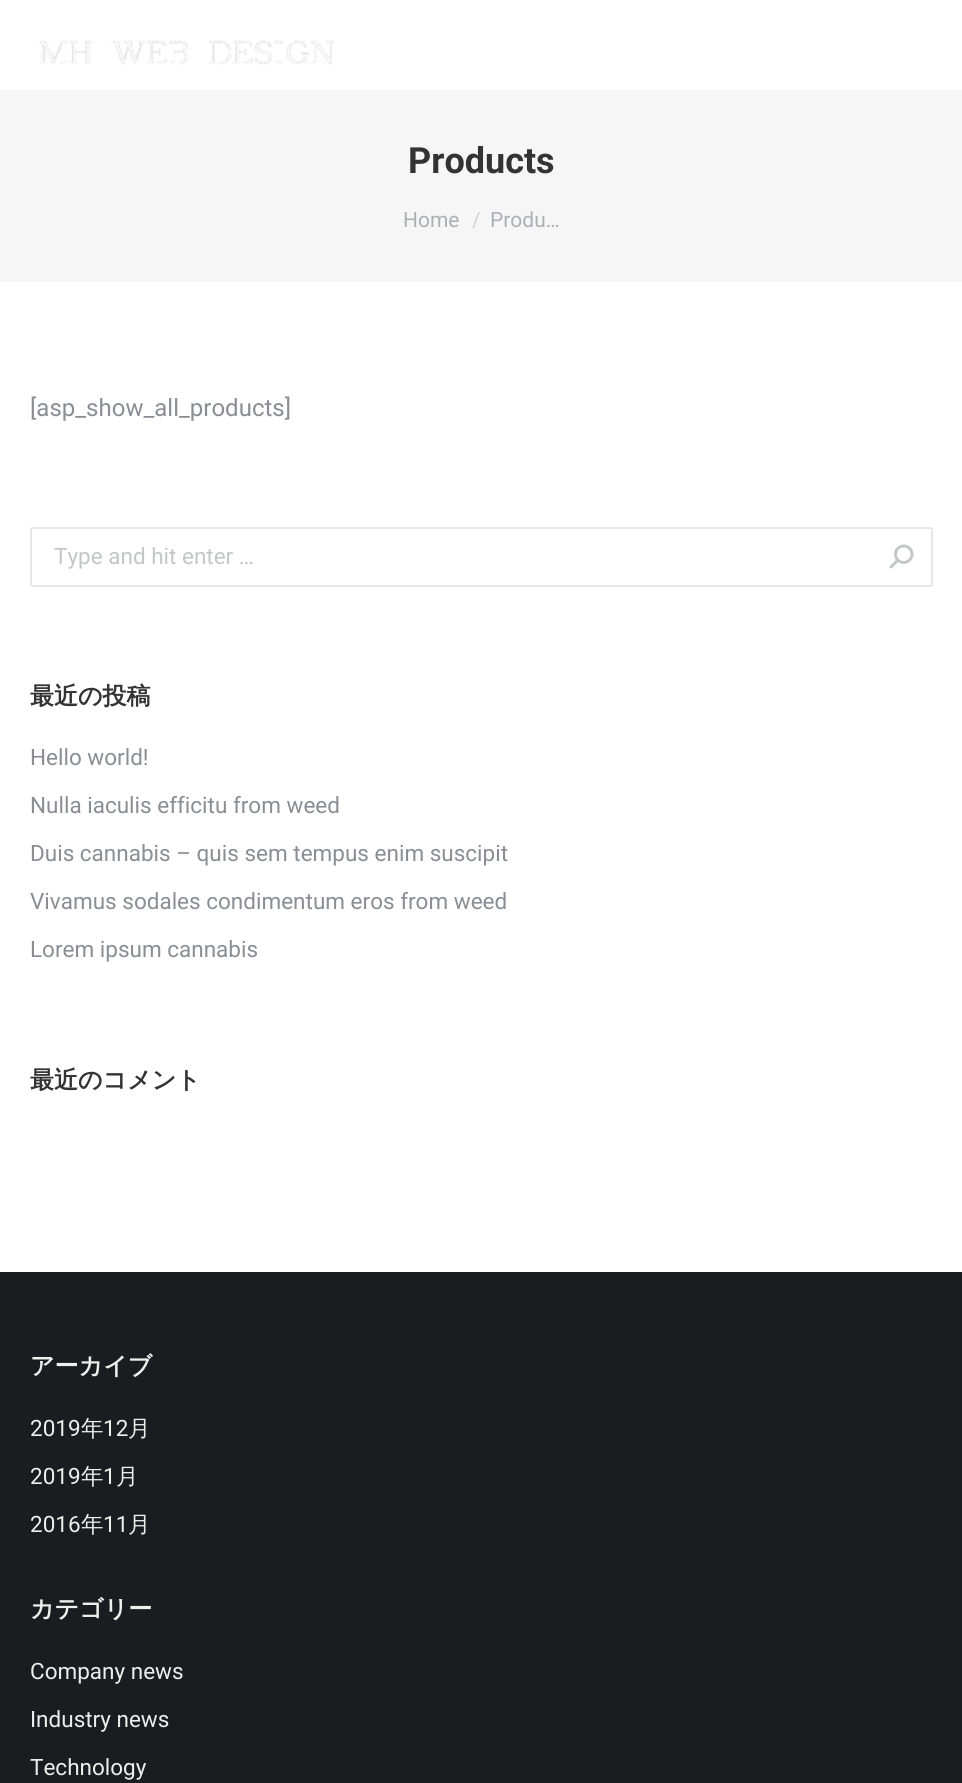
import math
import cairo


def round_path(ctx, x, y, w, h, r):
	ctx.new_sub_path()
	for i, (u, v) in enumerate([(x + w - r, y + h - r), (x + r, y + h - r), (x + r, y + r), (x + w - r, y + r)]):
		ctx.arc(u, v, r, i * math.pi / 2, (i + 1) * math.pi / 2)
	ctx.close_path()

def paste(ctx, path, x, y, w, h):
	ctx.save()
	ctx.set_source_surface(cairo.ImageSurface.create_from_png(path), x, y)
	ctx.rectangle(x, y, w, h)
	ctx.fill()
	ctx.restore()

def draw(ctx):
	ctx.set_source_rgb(1, 1, 1)
	ctx.paint()
	paste(ctx, 'media/1.png', 39, 40, 296, 25)
	ctx.set_source_rgb(0.961, 0.961, 0.961)
	ctx.rectangle(0, 90, 962, 192)
	ctx.fill()
	ctx.select_font_face('Roboto', cairo.FONT_SLANT_NORMAL, cairo.FONT_WEIGHT_BOLD)
	ctx.set_font_size(36)
	ctx.set_source_rgb(0.2, 0.2, 0.2)
	ctx.move_to(408, 173)
	ctx.show_text('Products')
	ctx.select_font_face('Roboto')
	ctx.set_font_size(21)
	ctx.set_source_rgb(0.678, 0.686, 0.702)
	ctx.move_to(403, 227)
	ctx.show_text('Home')
	ctx.set_source_rgb(0.82, 0.824, 0.831)
	ctx.move_to(472, 227)
	ctx.show_text('/')
	ctx.set_source_rgb(0.678, 0.686, 0.702)
	ctx.move_to(490, 227)
	ctx.show_text('Produ…')
	ctx.set_font_size(24)
	ctx.set_source_rgb(0.545, 0.553, 0.58)
	ctx.move_to(30, 416)
	ctx.show_text('[asp_show_all_products]')
	round_path(ctx, 31, 528, 901, 58, 2)
	ctx.set_source_rgb(0.906, 0.906, 0.906)
	ctx.stroke()
	ctx.set_font_size(22.5)
	ctx.set_source_rgb(0.769, 0.773, 0.788)
	ctx.move_to(54, 564)
	ctx.show_text('Type and hit enter …')
	paste(ctx, 'media/2.png', 889, 544, 25, 25)
	ctx.select_font_face('WenQuanYi Zen Hei', cairo.FONT_SLANT_NORMAL, cairo.FONT_WEIGHT_BOLD)
	ctx.set_font_size(24)
	ctx.set_source_rgb(0.2, 0.2, 0.2)
	ctx.move_to(30, 704)
	ctx.show_text('最近の投稿')
	ctx.select_font_face('Roboto')
	ctx.set_font_size(22.5)
	ctx.set_source_rgb(0.545, 0.553, 0.58)
	for x, y, s in [
		(30, 765, 'Hello world!'),
		(30, 813, 'Nulla iaculis efficitu from weed'),
		(30, 861, 'Duis cannabis – quis sem tempus enim suscipit'),
		(30, 909, 'Vivamus sodales condimentum eros from weed'),
		(30, 957, 'Lorem ipsum cannabis'),
	]:
		ctx.move_to(x, y)
		ctx.show_text(s)
	ctx.select_font_face('WenQuanYi Zen Hei', cairo.FONT_SLANT_NORMAL, cairo.FONT_WEIGHT_BOLD)
	ctx.set_font_size(24)
	ctx.set_source_rgb(0.2, 0.2, 0.2)
	ctx.move_to(30, 1088)
	ctx.show_text('最近のコメント')
	ctx.set_source_rgb(0.102, 0.11, 0.125)
	ctx.rectangle(0, 1272, 962, 511)
	ctx.fill()
	ctx.set_source_rgb(0.933, 0.933, 0.933)
	ctx.move_to(30, 1374)
	ctx.show_text('アーカイブ')
	ctx.select_font_face('Roboto')
	ctx.set_font_size(22.5)
	ctx.move_to(30, 1436)
	ctx.show_text('2019')
	ctx.select_font_face('WenQuanYi Zen Hei Medium')
	ctx.move_to(81, 1436)
	ctx.show_text('年')
	ctx.select_font_face('Roboto')
	ctx.move_to(103, 1436)
	ctx.show_text('12')
	ctx.select_font_face('WenQuanYi Zen Hei Medium')
	ctx.move_to(128, 1436)
	ctx.show_text('月')
	ctx.select_font_face('Roboto')
	ctx.move_to(30, 1484)
	ctx.show_text('2019')
	ctx.select_font_face('WenQuanYi Zen Hei Medium')
	ctx.move_to(81, 1484)
	ctx.show_text('年')
	ctx.select_font_face('Roboto')
	ctx.move_to(103, 1484)
	ctx.show_text('1')
	ctx.select_font_face('WenQuanYi Zen Hei Medium')
	ctx.move_to(116, 1484)
	ctx.show_text('月')
	ctx.select_font_face('Roboto')
	ctx.move_to(30, 1532)
	ctx.show_text('2016')
	ctx.select_font_face('WenQuanYi Zen Hei Medium')
	ctx.move_to(81, 1532)
	ctx.show_text('年')
	ctx.select_font_face('Roboto')
	ctx.move_to(103, 1532)
	ctx.show_text('11')
	ctx.select_font_face('WenQuanYi Zen Hei Medium')
	ctx.move_to(128, 1532)
	ctx.show_text('月')
	ctx.select_font_face('WenQuanYi Zen Hei', cairo.FONT_SLANT_NORMAL, cairo.FONT_WEIGHT_BOLD)
	ctx.set_font_size(24)
	ctx.move_to(30, 1617)
	ctx.show_text('カテゴリー')
	ctx.select_font_face('Roboto')
	ctx.set_font_size(22.5)
	for x, y, s in [
		(30, 1679, 'Company news'),
		(30, 1727, 'Industry news'),
		(30, 1775, 'Technology'),
	]:
		ctx.move_to(x, y)
		ctx.show_text(s)


surface = cairo.ImageSurface(cairo.FORMAT_RGB24, 962, 1783)
ctx = cairo.Context(surface)
options = cairo.FontOptions()
options.set_hint_metrics(cairo.HINT_METRICS_OFF)
options.set_hint_style(cairo.HINT_STYLE_NONE)
ctx.set_font_options(options)
ctx.set_miter_limit(4)
draw(ctx)
surface.write_to_png('image.png')
